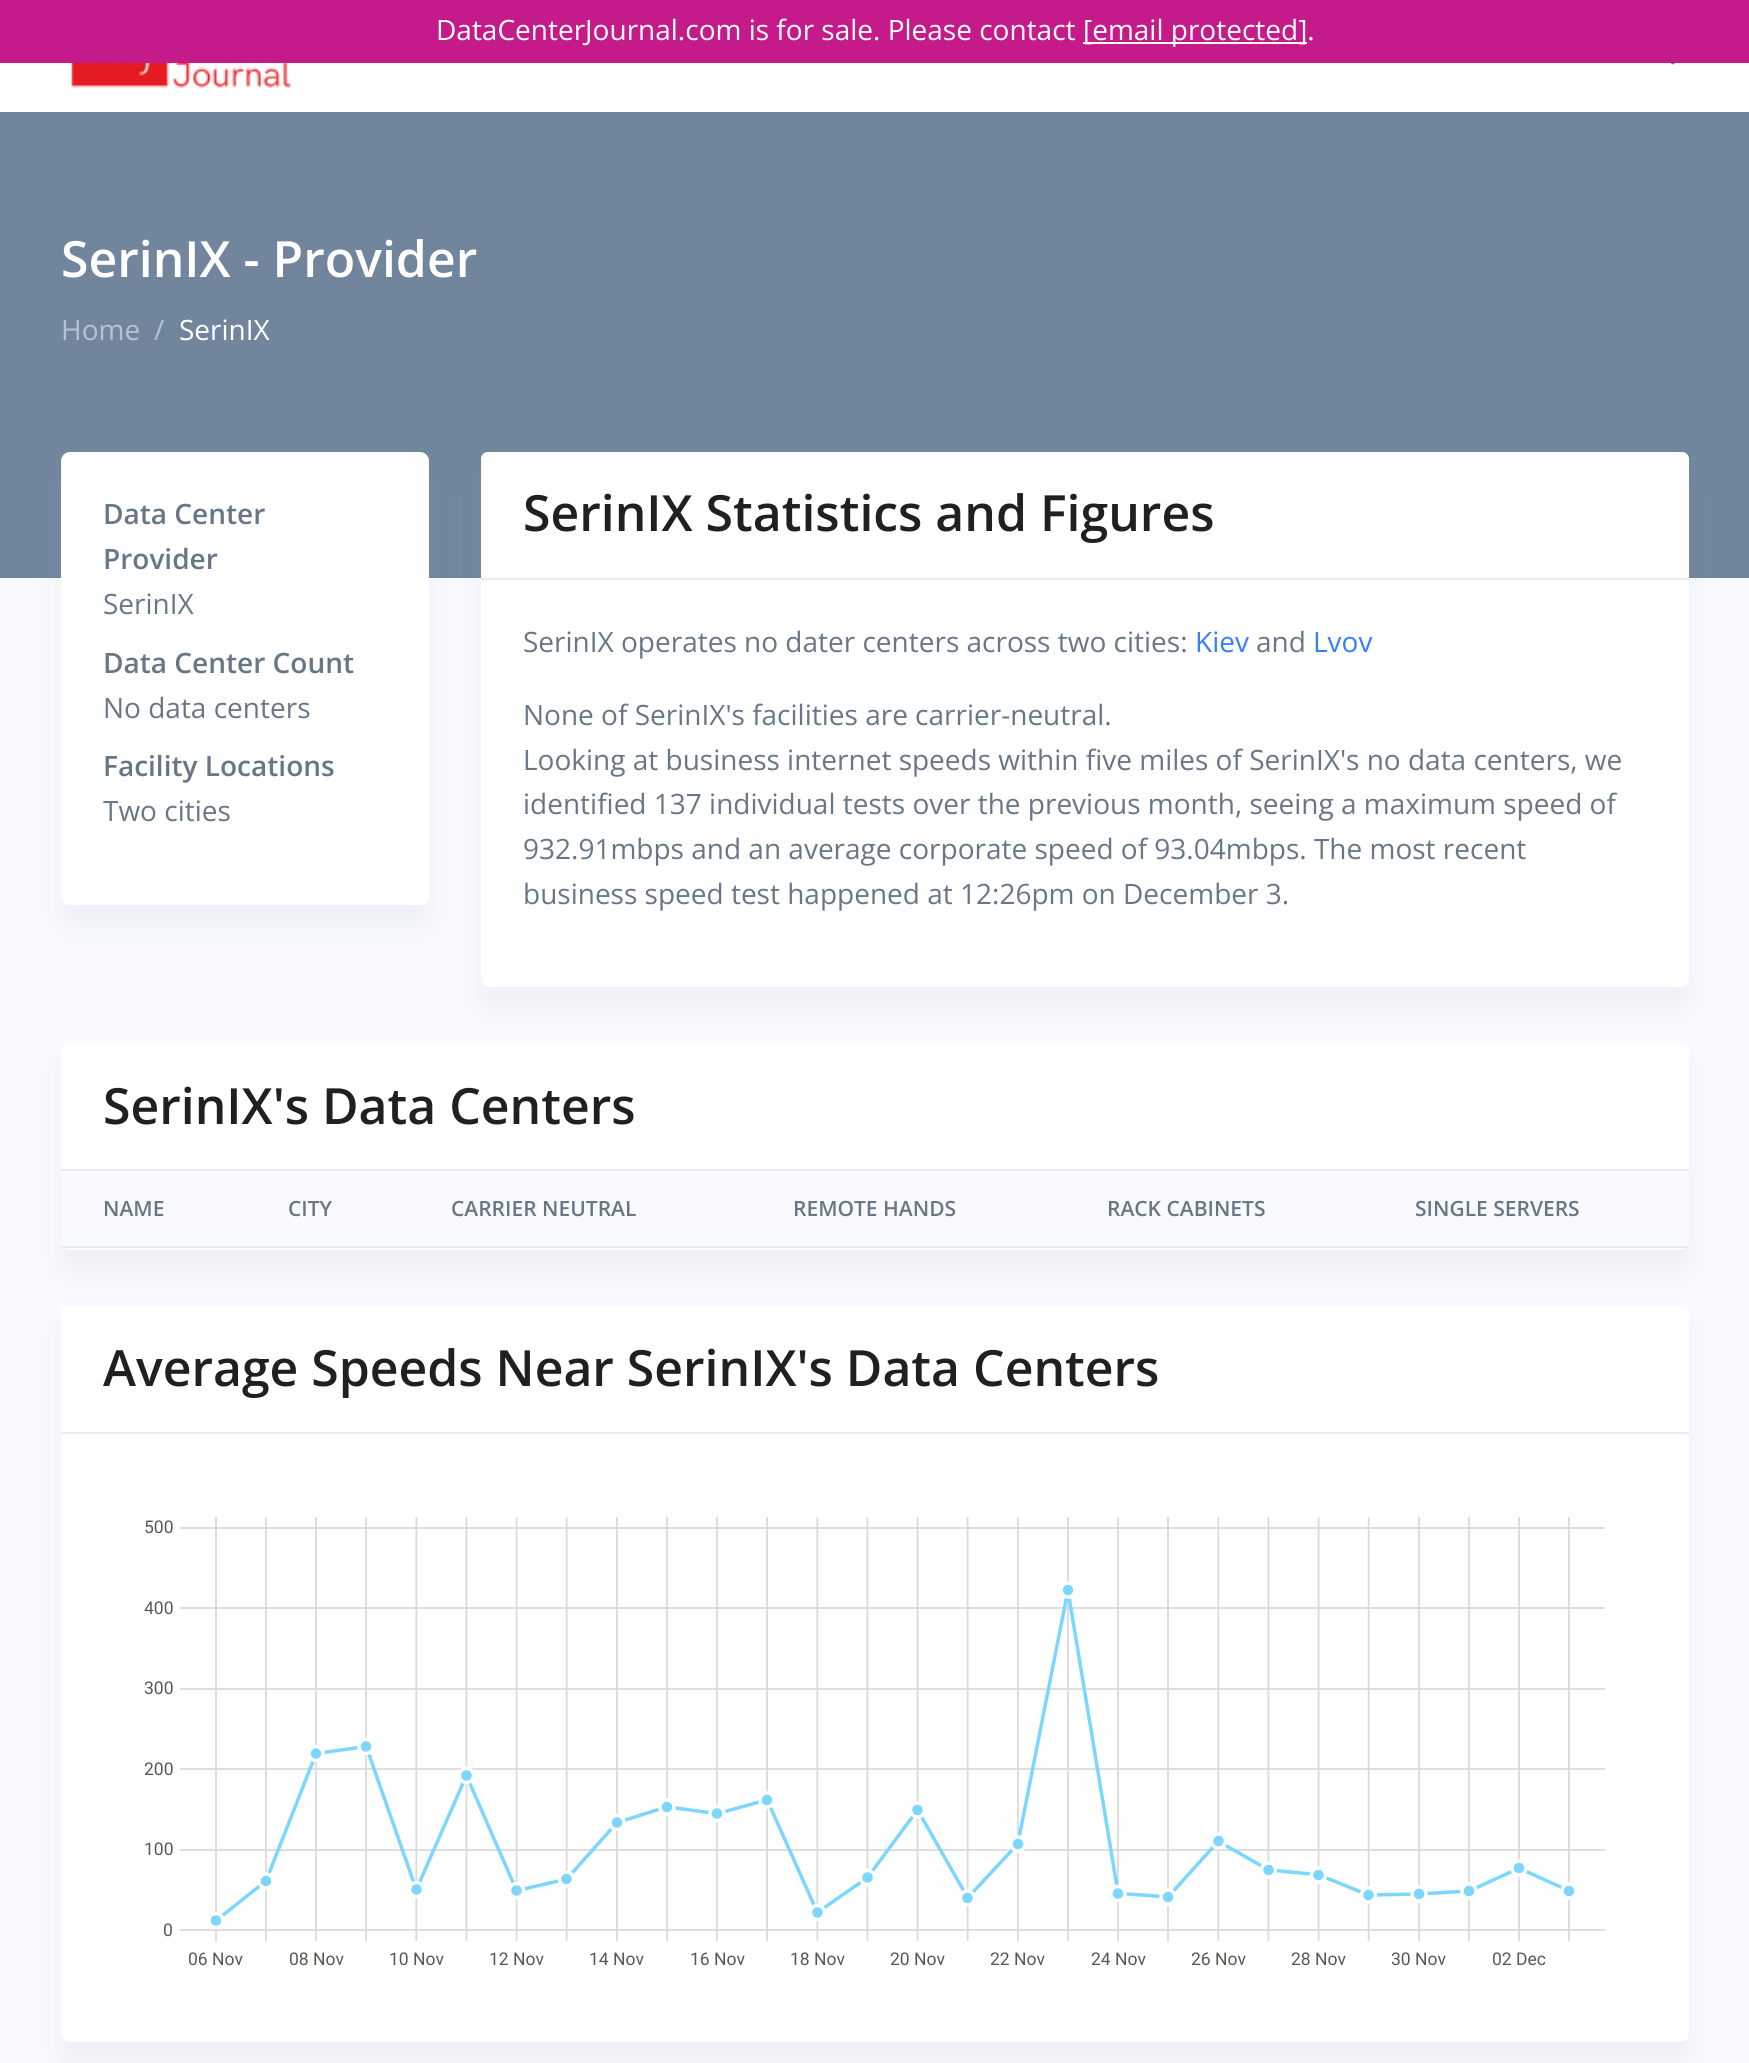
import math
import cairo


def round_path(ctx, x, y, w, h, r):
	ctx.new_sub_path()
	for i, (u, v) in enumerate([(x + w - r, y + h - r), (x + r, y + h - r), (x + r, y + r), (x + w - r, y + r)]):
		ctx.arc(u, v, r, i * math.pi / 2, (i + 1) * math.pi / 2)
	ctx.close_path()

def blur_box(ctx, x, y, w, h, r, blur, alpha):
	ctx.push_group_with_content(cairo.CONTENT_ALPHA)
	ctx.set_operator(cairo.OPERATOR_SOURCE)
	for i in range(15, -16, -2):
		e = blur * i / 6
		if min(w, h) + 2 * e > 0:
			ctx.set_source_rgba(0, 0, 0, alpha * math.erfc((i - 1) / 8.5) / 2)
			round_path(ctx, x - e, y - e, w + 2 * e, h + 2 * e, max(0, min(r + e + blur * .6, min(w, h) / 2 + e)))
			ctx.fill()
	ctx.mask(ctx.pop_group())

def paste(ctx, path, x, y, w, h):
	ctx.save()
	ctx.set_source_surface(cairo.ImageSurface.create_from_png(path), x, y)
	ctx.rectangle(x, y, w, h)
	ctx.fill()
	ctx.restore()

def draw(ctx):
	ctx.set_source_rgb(1, 1, 1)
	ctx.paint()
	ctx.set_source_rgb(0.773, 0.106, 0.541)
	ctx.rectangle(0, 0, 1749, 63)
	ctx.fill()
	ctx.select_font_face('Open Sans')
	ctx.set_font_size(28)
	ctx.set_source_rgb(1, 1, 1)
	ctx.move_to(436, 40)
	ctx.show_text('DataCenterJournal.com is for sale. Please contact')
	ctx.rectangle(1083, 42, 224, 2)
	ctx.fill()
	ctx.move_to(1083, 40)
	ctx.show_text('[email protected].')
	paste(ctx, 'media/1.png', 71, 63, 220, 25)
	paste(ctx, 'media/2.png', 1670, 63, 5, 2)
	ctx.set_source_rgb(0.969, 0.98, 1)
	ctx.rectangle(0, 578, 1749, 1485)
	ctx.fill()
	ctx.set_source_rgb(0.443, 0.525, 0.616)
	ctx.rectangle(0, 112, 1749, 466)
	ctx.fill()
	ctx.select_font_face('Open Sans SemiBold')
	ctx.set_font_size(49.9)
	ctx.set_source_rgb(1, 1, 1)
	ctx.move_to(61, 277)
	ctx.show_text('SerinIX - Provider')
	ctx.select_font_face('Open Sans')
	ctx.set_font_size(28)
	ctx.set_source_rgb(0.722, 0.765, 0.808)
	ctx.move_to(61, 340)
	ctx.show_text('Home')
	ctx.move_to(154, 340)
	ctx.show_text('/')
	ctx.set_source_rgb(1, 1, 1)
	ctx.move_to(179, 340)
	ctx.show_text('SerinIX')
	ctx.set_source_rgb(0.549, 0.596, 0.643)
	blur_box(ctx, 61, 473, 368, 453, 9, 13, 0.1)
	ctx.set_source_rgb(1, 1, 1)
	round_path(ctx, 61, 452, 368, 453, 9)
	ctx.fill()
	ctx.select_font_face('Open Sans SemiBold')
	ctx.set_source_rgb(0.404, 0.467, 0.533)
	ctx.move_to(103, 524)
	ctx.show_text('Data Center')
	ctx.move_to(103, 569)
	ctx.show_text('Provider')
	ctx.select_font_face('Open Sans')
	ctx.move_to(103, 614)
	ctx.show_text('SerinIX')
	ctx.select_font_face('Open Sans SemiBold')
	ctx.move_to(103, 673)
	ctx.show_text('Data Center Count')
	ctx.select_font_face('Open Sans')
	ctx.move_to(103, 718)
	ctx.show_text('No data centers')
	ctx.select_font_face('Open Sans SemiBold')
	ctx.move_to(103, 776)
	ctx.show_text('Facility Locations')
	ctx.select_font_face('Open Sans')
	ctx.move_to(103, 821)
	ctx.show_text('Two cities')
	ctx.set_source_rgb(0.549, 0.596, 0.643)
	blur_box(ctx, 481, 473, 1208, 535, 9, 13, 0.1)
	ctx.set_source_rgb(1, 1, 1)
	round_path(ctx, 481, 452, 1208, 535, 9)
	ctx.fill()
	ctx.new_path()
	ctx.move_to(488, 452)
	ctx.line_to(1682, 452)
	ctx.curve_to(1686, 452, 1689, 455, 1689, 459)
	ctx.line_to(1689, 579)
	ctx.line_to(481, 579)
	ctx.line_to(481, 459)
	ctx.curve_to(481, 455, 484, 452, 488, 452)
	ctx.close_path()
	ctx.fill()
	ctx.set_source_rgb(0.906, 0.918, 0.953)
	ctx.rectangle(481, 578, 1208, 2)
	ctx.fill()
	ctx.select_font_face('Open Sans SemiBold')
	ctx.set_font_size(49.9)
	ctx.set_source_rgb(0.118, 0.125, 0.133)
	ctx.move_to(523, 531)
	ctx.show_text('SerinIX Statistics and Figures')
	ctx.select_font_face('Open Sans')
	ctx.set_font_size(28)
	ctx.set_source_rgb(0.404, 0.467, 0.533)
	ctx.move_to(523, 652)
	ctx.show_text('SerinIX operates no dater centers across two cities:')
	ctx.set_source_rgb(0.216, 0.49, 1)
	ctx.move_to(1195, 652)
	ctx.show_text('Kiev')
	ctx.set_source_rgb(0.404, 0.467, 0.533)
	ctx.move_to(1256, 652)
	ctx.show_text('and')
	ctx.set_source_rgb(0.216, 0.49, 1)
	ctx.move_to(1313, 652)
	ctx.show_text('Lvov')
	ctx.set_source_rgb(0.404, 0.467, 0.533)
	for x, y, s in [
		(523, 725, 'None of SerinIX\'s facilities are carrier-neutral.'),
		(523, 770, 'Looking at business internet speeds within five miles of SerinIX\'s no data centers, we'),
		(523, 814, 'identified 137 individual tests over the previous month, seeing a maximum speed of'),
		(523, 859, '932.91mbps and an average corporate speed of 93.04mbps. The most recent'),
		(523, 904, 'business speed test happened at 12:26pm on December 3.'),
	]:
		ctx.move_to(x, y)
		ctx.show_text(s)
	ctx.set_source_rgb(0.549, 0.596, 0.643)
	blur_box(ctx, 61, 1064, 1628, 207, 9, 13, 0.1)
	ctx.set_source_rgb(1, 1, 1)
	round_path(ctx, 61, 1043, 1628, 207, 9)
	ctx.fill()
	ctx.new_path()
	ctx.move_to(68, 1043)
	ctx.line_to(1682, 1043)
	ctx.curve_to(1686, 1043, 1689, 1046, 1689, 1050)
	ctx.line_to(1689, 1171)
	ctx.line_to(61, 1171)
	ctx.line_to(61, 1050)
	ctx.curve_to(61, 1046, 64, 1043, 68, 1043)
	ctx.close_path()
	ctx.fill()
	ctx.set_source_rgb(0.906, 0.918, 0.953)
	ctx.rectangle(61, 1169, 1628, 2)
	ctx.fill()
	ctx.select_font_face('Open Sans SemiBold')
	ctx.set_font_size(49.9)
	ctx.set_source_rgb(0.118, 0.125, 0.133)
	ctx.move_to(103, 1124)
	ctx.show_text('SerinIX\'s Data Centers')
	ctx.set_source_rgb(0.973, 0.98, 0.992)
	ctx.rectangle(61, 1171, 1628, 75)
	ctx.fill()
	ctx.set_font_size(21)
	ctx.set_source_rgb(0.404, 0.467, 0.533)
	for x, y, s in [
		(103, 1216, 'NAME'),
		(288, 1216, 'CITY'),
		(451, 1216, 'CARRIER NEUTRAL'),
		(793, 1216, 'REMOTE HANDS'),
		(1107, 1216, 'RACK CABINETS'),
	]:
		ctx.move_to(x, y)
		ctx.show_text(s)
	ctx.set_source_rgb(0.906, 0.918, 0.953)
	ctx.rectangle(61, 1246, 1628, 2)
	ctx.fill()
	ctx.set_source_rgb(0.404, 0.467, 0.533)
	ctx.move_to(1415, 1216)
	ctx.show_text('SINGLE SERVERS')
	ctx.set_source_rgb(0.549, 0.596, 0.643)
	blur_box(ctx, 61, 1327, 1628, 736, 9, 13, 0.1)
	ctx.set_source_rgb(1, 1, 1)
	round_path(ctx, 61, 1306, 1628, 736, 9)
	ctx.fill()
	ctx.new_path()
	ctx.move_to(68, 1306)
	ctx.line_to(1682, 1306)
	ctx.curve_to(1686, 1306, 1689, 1309, 1689, 1313)
	ctx.line_to(1689, 1433)
	ctx.line_to(61, 1433)
	ctx.line_to(61, 1313)
	ctx.curve_to(61, 1309, 64, 1306, 68, 1306)
	ctx.close_path()
	ctx.fill()
	ctx.set_source_rgb(0.906, 0.918, 0.953)
	ctx.rectangle(61, 1432, 1628, 2)
	ctx.fill()
	ctx.set_font_size(49.9)
	ctx.set_source_rgb(0.118, 0.125, 0.133)
	ctx.move_to(103, 1386)
	ctx.show_text('Average Speeds Near SerinIX\'s Data Centers')
	ctx.select_font_face('Roboto')
	ctx.set_font_size(17.5)
	ctx.set_source_rgb(0.333, 0.357, 0.318)
	ctx.move_to(144, 1533)
	ctx.show_text('500')
	paste(ctx, 'media/3.png', 180, 1517, 1425, 424)
	for x, y, s in [
		(144, 1614, '400'),
		(144, 1694, '300'),
		(144, 1775, '200'),
		(144, 1855, '100'),
		(163, 1936, '0'),
		(188, 1965, '06 Nov'),
		(289, 1965, '08 Nov'),
		(389, 1965, '10 Nov'),
		(489, 1965, '12 Nov'),
		(589, 1965, '14 Nov'),
		(690, 1965, '16 Nov'),
		(790, 1965, '18 Nov'),
		(890, 1965, '20 Nov'),
		(990, 1965, '22 Nov'),
		(1091, 1965, '24 Nov'),
		(1191, 1965, '26 Nov'),
		(1291, 1965, '28 Nov'),
		(1391, 1965, '30 Nov'),
		(1492, 1965, '02 Dec'),
	]:
		ctx.move_to(x, y)
		ctx.show_text(s)


surface = cairo.ImageSurface(cairo.FORMAT_RGB24, 1749, 2063)
ctx = cairo.Context(surface)
options = cairo.FontOptions()
options.set_hint_metrics(cairo.HINT_METRICS_OFF)
options.set_hint_style(cairo.HINT_STYLE_NONE)
ctx.set_font_options(options)
ctx.set_miter_limit(4)
draw(ctx)
surface.write_to_png('image.png')
